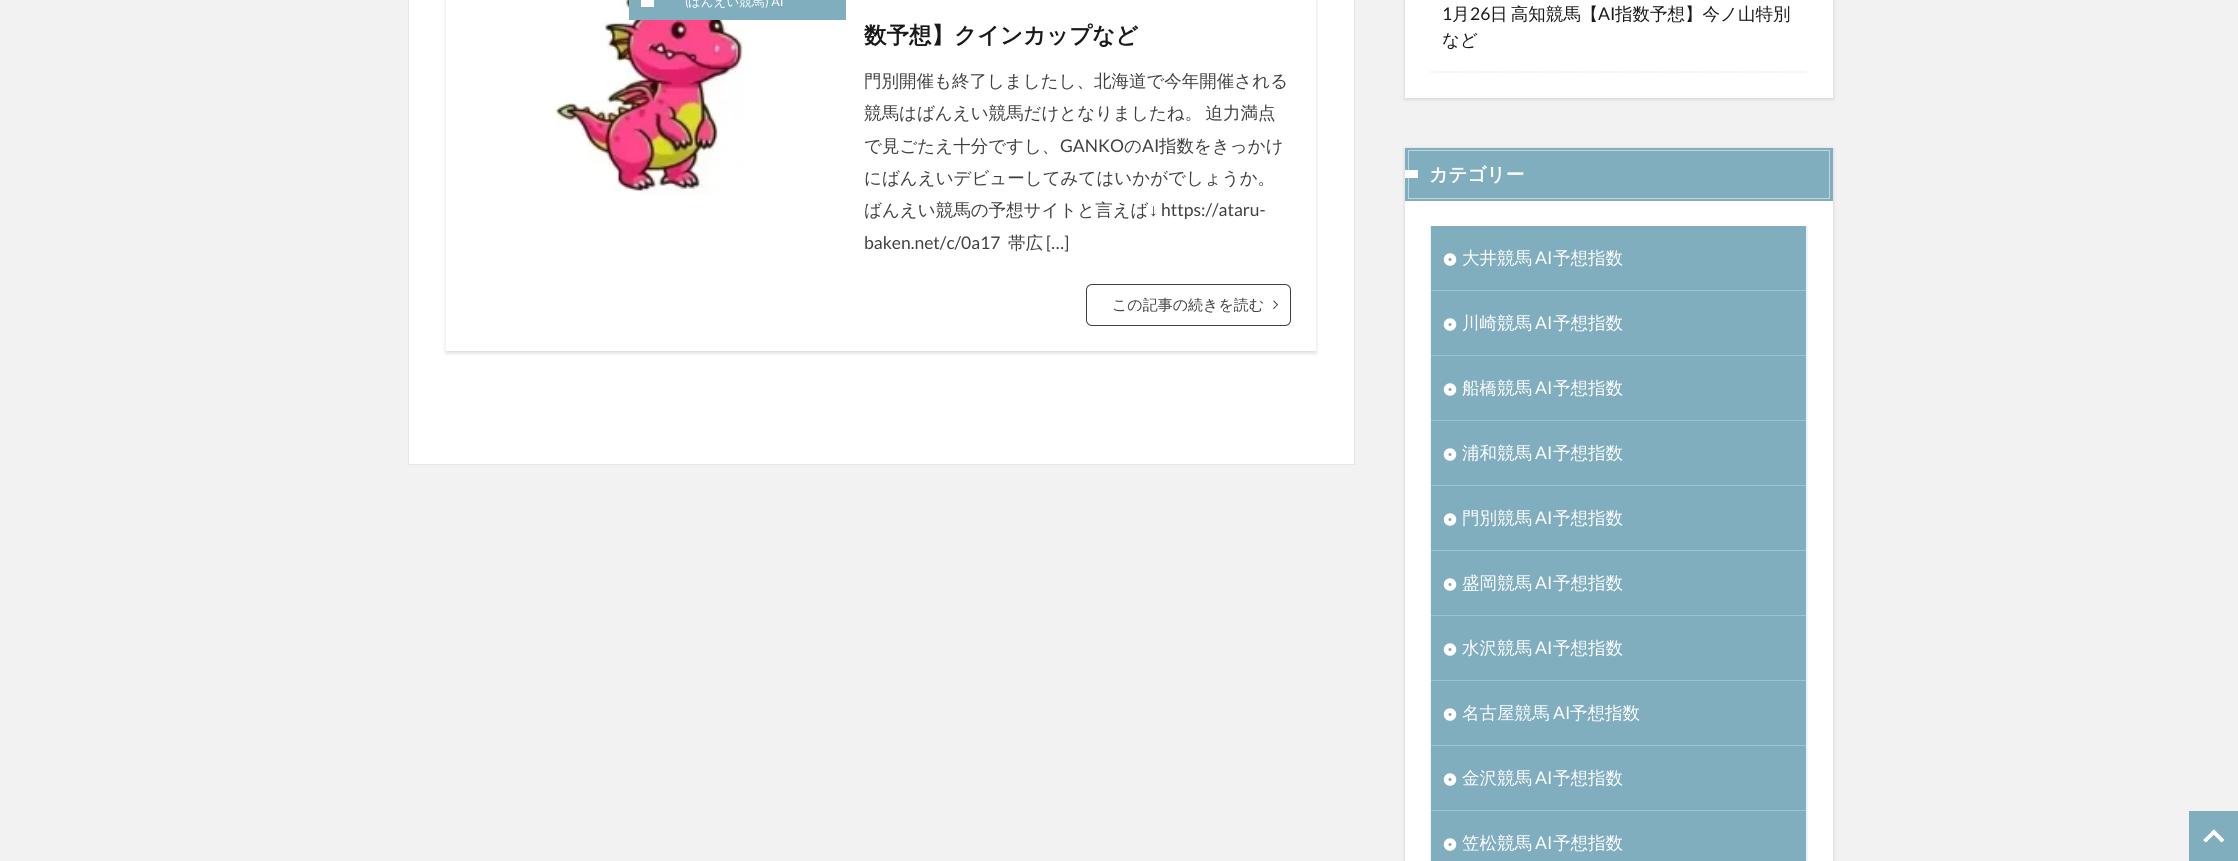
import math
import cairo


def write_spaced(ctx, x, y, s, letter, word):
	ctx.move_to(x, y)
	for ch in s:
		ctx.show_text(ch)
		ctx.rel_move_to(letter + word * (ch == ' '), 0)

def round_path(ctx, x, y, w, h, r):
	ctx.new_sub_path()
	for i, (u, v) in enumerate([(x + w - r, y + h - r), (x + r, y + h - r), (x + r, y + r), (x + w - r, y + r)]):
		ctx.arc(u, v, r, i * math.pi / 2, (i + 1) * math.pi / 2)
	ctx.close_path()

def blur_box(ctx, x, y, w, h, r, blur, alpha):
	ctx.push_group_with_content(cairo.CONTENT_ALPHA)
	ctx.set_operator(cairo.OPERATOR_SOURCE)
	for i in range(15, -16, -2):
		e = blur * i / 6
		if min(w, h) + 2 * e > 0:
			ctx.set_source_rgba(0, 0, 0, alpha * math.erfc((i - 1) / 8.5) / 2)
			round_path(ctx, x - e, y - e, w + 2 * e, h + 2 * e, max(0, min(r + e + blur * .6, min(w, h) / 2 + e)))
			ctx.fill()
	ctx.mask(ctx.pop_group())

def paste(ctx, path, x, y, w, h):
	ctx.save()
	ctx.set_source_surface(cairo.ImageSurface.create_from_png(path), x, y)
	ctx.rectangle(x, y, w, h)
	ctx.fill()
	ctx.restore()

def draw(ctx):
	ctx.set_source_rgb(0.949, 0.949, 0.949)
	ctx.paint()
	ctx.set_source_rgb(1, 1, 1)
	ctx.rectangle(408.5, -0.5, 946, 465)
	ctx.fill_preserve()
	ctx.set_source_rgb(0.902, 0.902, 0.902)
	ctx.set_line_width(1)
	ctx.stroke()
	ctx.set_source_rgb(0, 0, 0)
	blur_box(ctx, 446, -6, 870, 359, 0, 2, 0.15)
	ctx.set_source_rgb(1, 1, 1)
	ctx.rectangle(446, 0, 870, 351)
	ctx.fill()
	paste(ctx, 'media/1.png', 554, 0, 192, 195)
	ctx.set_source_rgb(0.502, 0.682, 0.749)
	ctx.rectangle(629, 0, 217, 20)
	ctx.fill()
	ctx.set_source_rgb(1, 1, 1)
	ctx.rectangle(641, 0, 13, 7)
	ctx.fill()
	ctx.select_font_face('Lato')
	ctx.set_font_size(12.5)
	ctx.move_to(685, 6)
	ctx.show_text('(')
	ctx.select_font_face('WenQuanYi Zen Hei Medium')
	ctx.move_to(688, 6)
	ctx.show_text('ばんえい競馬')
	ctx.select_font_face('Lato')
	ctx.move_to(765, 6)
	ctx.show_text(') AI')
	ctx.select_font_face('WenQuanYi Zen Hei', cairo.FONT_SLANT_NORMAL, cairo.FONT_WEIGHT_BOLD)
	ctx.set_font_size(22.5)
	ctx.set_source_rgb(0.098, 0.098, 0.098)
	ctx.move_to(864, 43)
	ctx.show_text('数予想】クインカップなど')
	ctx.select_font_face('WenQuanYi Zen Hei Medium')
	ctx.set_font_size(17.5)
	ctx.set_source_rgb(0.251, 0.251, 0.251)
	ctx.move_to(864, 87)
	ctx.show_text('門別開催も終了しましたし、北海道で今年開催される')
	write_spaced(ctx, 864, 119, '競馬はばんえい競馬だけとなりましたね。 迫力満点', 0, -2)
	ctx.move_to(864, 152)
	ctx.show_text('で見ごたえ十分ですし、')
	ctx.select_font_face('Lato')
	ctx.move_to(1060, 152)
	ctx.show_text('GANKO')
	ctx.select_font_face('WenQuanYi Zen Hei Medium')
	ctx.move_to(1124, 152)
	ctx.show_text('の')
	ctx.select_font_face('Lato')
	ctx.move_to(1142, 152)
	ctx.show_text('AI')
	ctx.select_font_face('WenQuanYi Zen Hei Medium')
	for x, y, s in [
		(1159, 152, '指数をきっかけ'),
		(864, 184, 'にばんえいデビューしてみてはいかがでしょうか。'),
		(864, 216, 'ばんえい競馬の予想サイトと言えば'),
	]:
		ctx.move_to(x, y)
		ctx.show_text(s)
	ctx.select_font_face('Liberation Serif')
	ctx.move_to(1149, 216)
	ctx.show_text('↓')
	ctx.select_font_face('Lato')
	ctx.move_to(1161, 216)
	ctx.show_text('https://ataru-')
	ctx.move_to(864, 249)
	ctx.show_text('baken.net/c/0a17')
	ctx.select_font_face('WenQuanYi Zen Hei Medium')
	ctx.move_to(1008, 249)
	ctx.show_text('帯広')
	ctx.select_font_face('Lato')
	ctx.move_to(1046, 249)
	ctx.show_text('[…]')
	round_path(ctx, 1086.5, 284.5, 204, 41, 5.5)
	ctx.set_source_rgb(0.247, 0.247, 0.247)
	ctx.stroke()
	ctx.select_font_face('WenQuanYi Zen Hei Medium')
	ctx.set_font_size(15)
	ctx.set_source_rgb(0.251, 0.251, 0.251)
	ctx.move_to(1112, 310)
	ctx.show_text('この記事の続きを読む')
	ctx.set_source_rgb(0.247, 0.247, 0.247)
	ctx.new_path()
	ctx.move_to(1274, 300.5)
	ctx.line_to(1278, 304.5)
	ctx.line_to(1277.5, 305.5)
	ctx.line_to(1273, 301)
	ctx.close_path()
	ctx.fill()
	ctx.new_path()
	ctx.move_to(1277.5, 304)
	ctx.line_to(1278, 304.5)
	ctx.line_to(1274, 309)
	ctx.line_to(1273, 308.5)
	ctx.close_path()
	ctx.fill()
	ctx.set_source_rgb(0, 0, 0)
	blur_box(ctx, 1405, -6, 428, 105, 0, 2, 0.15)
	ctx.set_source_rgb(1, 1, 1)
	ctx.rectangle(1405, 0, 428, 98)
	ctx.fill()
	ctx.new_path()
	ctx.move_to(1430, 72)
	ctx.line_to(1807.5, 72)
	ctx.set_source_rgb(0.902, 0.902, 0.902)
	ctx.set_line_width(1.2)
	ctx.set_dash([1.25, 1.25])
	ctx.stroke()
	ctx.select_font_face('Lato')
	ctx.set_font_size(17.5)
	ctx.set_source_rgb(0.098, 0.098, 0.098)
	ctx.move_to(1442, 20)
	ctx.show_text('1')
	ctx.select_font_face('WenQuanYi Zen Hei Medium')
	ctx.move_to(1452, 20)
	ctx.show_text('月')
	ctx.select_font_face('Lato')
	ctx.move_to(1470, 20)
	ctx.show_text('26')
	ctx.select_font_face('WenQuanYi Zen Hei Medium')
	write_spaced(ctx, 1490, 20, '日 高知競馬【', 0, -2)
	ctx.select_font_face('Lato')
	ctx.move_to(1598, 20)
	ctx.show_text('AI')
	ctx.select_font_face('WenQuanYi Zen Hei Medium')
	ctx.move_to(1615, 20)
	ctx.show_text('指数予想】今ノ山特別')
	ctx.move_to(1442, 46)
	ctx.show_text('など')
	ctx.set_source_rgb(0, 0, 0)
	blur_box(ctx, 1405, 149, 428, 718, 0, 2, 0.15)
	ctx.set_source_rgb(1, 1, 1)
	ctx.rectangle(1405, 201, 428, 660)
	ctx.fill()
	ctx.set_source_rgb(0.502, 0.682, 0.749)
	ctx.rectangle(1405, 148, 428, 53)
	ctx.fill()
	ctx.rectangle(1408.5, 150.5, 421, 48)
	ctx.set_source_rgb(0.753, 0.843, 0.875)
	ctx.set_line_width(1)
	ctx.set_dash([])
	ctx.stroke()
	ctx.set_source_rgb(1, 1, 1)
	ctx.rectangle(1405, 170, 13, 8)
	ctx.fill()
	ctx.select_font_face('WenQuanYi Zen Hei', cairo.FONT_SLANT_NORMAL, cairo.FONT_WEIGHT_BOLD)
	ctx.set_font_size(18.75)
	ctx.move_to(1429, 181)
	ctx.show_text('カテゴリー')
	ctx.set_source_rgb(0.925, 0.953, 0.961)
	ctx.new_path()
	ctx.move_to(1808, 226)
	ctx.line_to(1808, 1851)
	ctx.line_to(1806, 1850)
	ctx.line_to(1806, 226)
	ctx.close_path()
	ctx.fill()
	ctx.new_path()
	ctx.move_to(1430, 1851)
	ctx.line_to(1430, 226)
	ctx.line_to(1431, 226)
	ctx.line_to(1431, 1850)
	ctx.close_path()
	ctx.fill()
	ctx.set_source_rgb(0.502, 0.682, 0.749)
	ctx.rectangle(1431, 226, 375, 64)
	ctx.fill()
	paste(ctx, 'media/2.png', 1443, 253, 14, 13)
	ctx.select_font_face('WenQuanYi Zen Hei Medium')
	ctx.set_font_size(17.5)
	ctx.set_source_rgb(1, 1, 1)
	ctx.move_to(1462, 264)
	ctx.show_text('大井競馬')
	ctx.select_font_face('Lato')
	ctx.move_to(1535, 264)
	ctx.show_text('AI')
	ctx.select_font_face('WenQuanYi Zen Hei Medium')
	ctx.move_to(1553, 264)
	ctx.show_text('予想指数')
	ctx.set_source_rgb(0.627, 0.761, 0.812)
	ctx.rectangle(1431, 290, 375, 1)
	ctx.fill()
	ctx.set_source_rgb(0.502, 0.682, 0.749)
	ctx.rectangle(1431, 291, 375, 64)
	ctx.fill()
	paste(ctx, 'media/2.png', 1443, 318, 14, 13)
	ctx.set_source_rgb(1, 1, 1)
	ctx.move_to(1462, 329)
	ctx.show_text('川崎競馬')
	ctx.select_font_face('Lato')
	ctx.move_to(1535, 329)
	ctx.show_text('AI')
	ctx.select_font_face('WenQuanYi Zen Hei Medium')
	ctx.move_to(1553, 329)
	ctx.show_text('予想指数')
	ctx.set_source_rgb(0.627, 0.761, 0.812)
	ctx.rectangle(1431, 355, 375, 1)
	ctx.fill()
	ctx.set_source_rgb(0.502, 0.682, 0.749)
	ctx.rectangle(1431, 356, 375, 64)
	ctx.fill()
	paste(ctx, 'media/2.png', 1443, 383, 14, 13)
	ctx.set_source_rgb(1, 1, 1)
	ctx.move_to(1462, 394)
	ctx.show_text('船橋競馬')
	ctx.select_font_face('Lato')
	ctx.move_to(1535, 394)
	ctx.show_text('AI')
	ctx.select_font_face('WenQuanYi Zen Hei Medium')
	ctx.move_to(1553, 394)
	ctx.show_text('予想指数')
	ctx.set_source_rgb(0.627, 0.761, 0.812)
	ctx.rectangle(1431, 420, 375, 1)
	ctx.fill()
	ctx.set_source_rgb(0.502, 0.682, 0.749)
	ctx.rectangle(1431, 421, 375, 64)
	ctx.fill()
	paste(ctx, 'media/2.png', 1443, 448, 14, 13)
	ctx.set_source_rgb(1, 1, 1)
	ctx.move_to(1462, 459)
	ctx.show_text('浦和競馬')
	ctx.select_font_face('Lato')
	ctx.move_to(1535, 459)
	ctx.show_text('AI')
	ctx.select_font_face('WenQuanYi Zen Hei Medium')
	ctx.move_to(1553, 459)
	ctx.show_text('予想指数')
	ctx.set_source_rgb(0.627, 0.761, 0.812)
	ctx.rectangle(1431, 485, 375, 1)
	ctx.fill()
	ctx.set_source_rgb(0.502, 0.682, 0.749)
	ctx.rectangle(1431, 486, 375, 64)
	ctx.fill()
	paste(ctx, 'media/2.png', 1443, 513, 14, 13)
	ctx.set_source_rgb(1, 1, 1)
	ctx.move_to(1462, 524)
	ctx.show_text('門別競馬')
	ctx.select_font_face('Lato')
	ctx.move_to(1535, 524)
	ctx.show_text('AI')
	ctx.select_font_face('WenQuanYi Zen Hei Medium')
	ctx.move_to(1553, 524)
	ctx.show_text('予想指数')
	ctx.set_source_rgb(0.627, 0.761, 0.812)
	ctx.rectangle(1431, 550, 375, 1)
	ctx.fill()
	ctx.set_source_rgb(0.502, 0.682, 0.749)
	ctx.rectangle(1431, 551, 375, 64)
	ctx.fill()
	paste(ctx, 'media/2.png', 1443, 578, 14, 13)
	ctx.set_source_rgb(1, 1, 1)
	ctx.move_to(1462, 589)
	ctx.show_text('盛岡競馬')
	ctx.select_font_face('Lato')
	ctx.move_to(1535, 589)
	ctx.show_text('AI')
	ctx.select_font_face('WenQuanYi Zen Hei Medium')
	ctx.move_to(1553, 589)
	ctx.show_text('予想指数')
	ctx.set_source_rgb(0.627, 0.761, 0.812)
	ctx.rectangle(1431, 615, 375, 1)
	ctx.fill()
	ctx.set_source_rgb(0.502, 0.682, 0.749)
	ctx.rectangle(1431, 616, 375, 64)
	ctx.fill()
	paste(ctx, 'media/2.png', 1443, 643, 14, 13)
	ctx.set_source_rgb(1, 1, 1)
	ctx.move_to(1462, 654)
	ctx.show_text('水沢競馬')
	ctx.select_font_face('Lato')
	ctx.move_to(1535, 654)
	ctx.show_text('AI')
	ctx.select_font_face('WenQuanYi Zen Hei Medium')
	ctx.move_to(1553, 654)
	ctx.show_text('予想指数')
	ctx.set_source_rgb(0.627, 0.761, 0.812)
	ctx.rectangle(1431, 680, 375, 1)
	ctx.fill()
	ctx.set_source_rgb(0.502, 0.682, 0.749)
	ctx.rectangle(1431, 681, 375, 64)
	ctx.fill()
	paste(ctx, 'media/2.png', 1443, 708, 14, 13)
	ctx.set_source_rgb(1, 1, 1)
	ctx.move_to(1462, 719)
	ctx.show_text('名古屋競馬')
	ctx.select_font_face('Lato')
	ctx.move_to(1553, 719)
	ctx.show_text('AI')
	ctx.select_font_face('WenQuanYi Zen Hei Medium')
	ctx.move_to(1570, 719)
	ctx.show_text('予想指数')
	ctx.set_source_rgb(0.627, 0.761, 0.812)
	ctx.rectangle(1431, 745, 375, 1)
	ctx.fill()
	ctx.set_source_rgb(0.502, 0.682, 0.749)
	ctx.rectangle(1431, 746, 375, 64)
	ctx.fill()
	paste(ctx, 'media/2.png', 1443, 773, 14, 13)
	ctx.set_source_rgb(1, 1, 1)
	ctx.move_to(1462, 784)
	ctx.show_text('金沢競馬')
	ctx.select_font_face('Lato')
	ctx.move_to(1535, 784)
	ctx.show_text('AI')
	ctx.select_font_face('WenQuanYi Zen Hei Medium')
	ctx.move_to(1553, 784)
	ctx.show_text('予想指数')
	ctx.set_source_rgb(0.627, 0.761, 0.812)
	ctx.rectangle(1431, 810, 375, 1)
	ctx.fill()
	ctx.set_source_rgb(0.502, 0.682, 0.749)
	ctx.rectangle(1431, 811, 375, 50)
	ctx.fill()
	paste(ctx, 'media/2.png', 1443, 838, 14, 13)
	ctx.set_source_rgb(1, 1, 1)
	ctx.move_to(1462, 849)
	ctx.show_text('笠松競馬')
	ctx.select_font_face('Lato')
	ctx.move_to(1535, 849)
	ctx.show_text('AI')
	ctx.select_font_face('WenQuanYi Zen Hei Medium')
	ctx.move_to(1553, 849)
	ctx.show_text('予想指数')
	ctx.set_source_rgb(0.502, 0.682, 0.749)
	ctx.rectangle(2189, 811, 49, 50)
	ctx.fill()
	ctx.set_source_rgb(1, 1, 1)
	ctx.new_path()
	ctx.move_to(2203, 840)
	ctx.line_to(2214, 829.5)
	ctx.line_to(2216.5, 832)
	ctx.line_to(2206, 842.5)
	ctx.close_path()
	ctx.fill()
	ctx.new_path()
	ctx.move_to(2211, 832)
	ctx.line_to(2214, 829.5)
	ctx.line_to(2224.5, 840)
	ctx.line_to(2221.5, 842.5)
	ctx.close_path()
	ctx.fill()


surface = cairo.ImageSurface(cairo.FORMAT_RGB24, 2238, 861)
ctx = cairo.Context(surface)
options = cairo.FontOptions()
options.set_hint_metrics(cairo.HINT_METRICS_OFF)
options.set_hint_style(cairo.HINT_STYLE_NONE)
ctx.set_font_options(options)
ctx.set_miter_limit(4)
draw(ctx)
surface.write_to_png('image.png')
